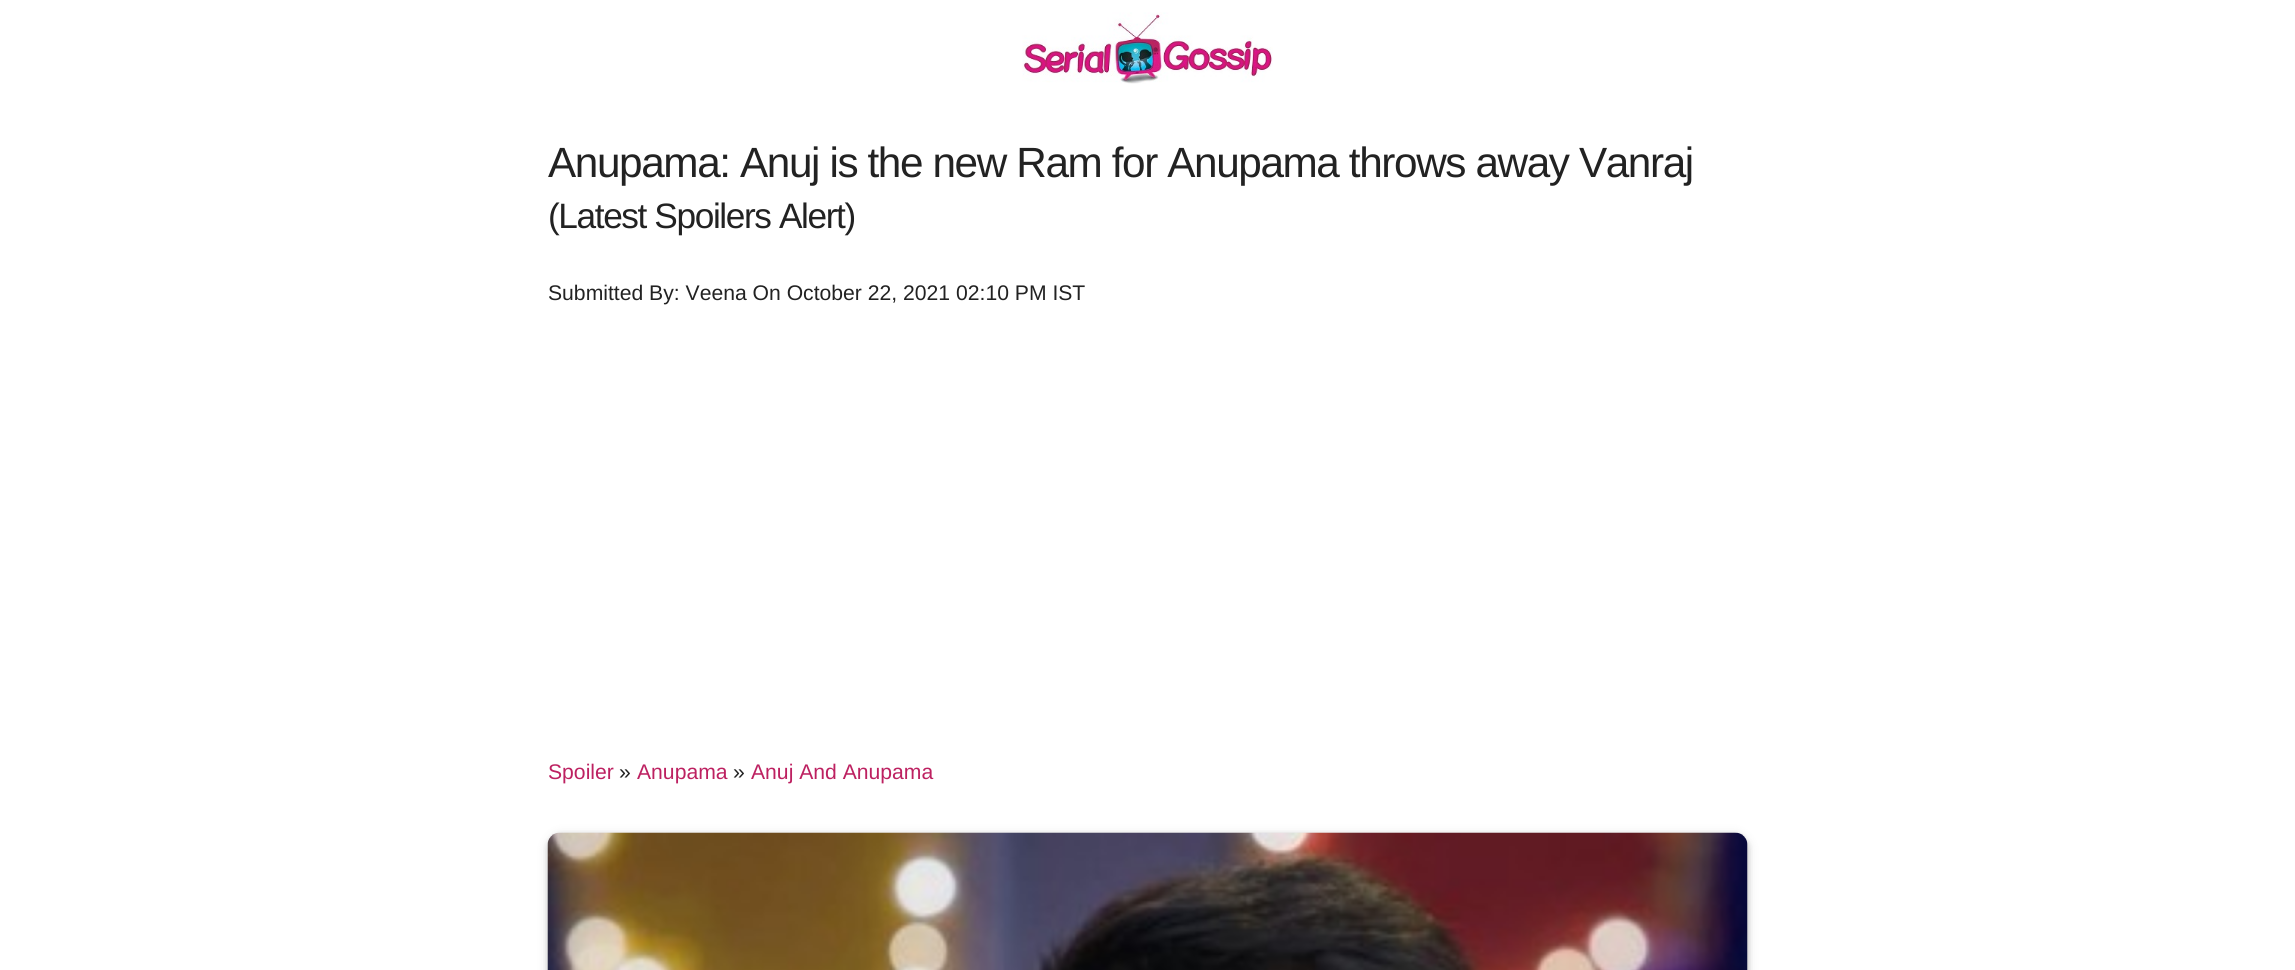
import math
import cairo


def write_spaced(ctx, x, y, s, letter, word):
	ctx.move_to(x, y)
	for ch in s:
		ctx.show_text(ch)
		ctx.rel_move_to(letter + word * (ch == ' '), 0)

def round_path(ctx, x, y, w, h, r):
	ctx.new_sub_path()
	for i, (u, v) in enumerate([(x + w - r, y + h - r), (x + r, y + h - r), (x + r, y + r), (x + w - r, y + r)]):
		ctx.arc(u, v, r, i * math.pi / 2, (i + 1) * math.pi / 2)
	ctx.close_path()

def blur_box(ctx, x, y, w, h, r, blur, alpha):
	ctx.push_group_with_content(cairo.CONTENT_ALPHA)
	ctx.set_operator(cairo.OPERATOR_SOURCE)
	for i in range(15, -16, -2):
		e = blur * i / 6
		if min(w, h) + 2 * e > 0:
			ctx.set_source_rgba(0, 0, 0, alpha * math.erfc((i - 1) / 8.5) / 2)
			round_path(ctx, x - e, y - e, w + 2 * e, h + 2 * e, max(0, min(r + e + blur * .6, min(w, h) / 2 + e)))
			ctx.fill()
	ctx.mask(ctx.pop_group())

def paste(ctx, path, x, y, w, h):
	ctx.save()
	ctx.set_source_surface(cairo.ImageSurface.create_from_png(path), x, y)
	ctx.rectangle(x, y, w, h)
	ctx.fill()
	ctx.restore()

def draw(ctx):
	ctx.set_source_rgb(1, 1, 1)
	ctx.paint()
	paste(ctx, 'media/1.png', 1022, 12, 251, 72)
	ctx.select_font_face('Liberation Sans')
	ctx.set_font_size(42.3)
	ctx.set_source_rgb(0.133, 0.133, 0.133)
	write_spaced(ctx, 548, 177, 'Anupama: Anuj is the new Ram for Anupama throws away Vanraj', -1.4, 0)
	ctx.set_font_size(35.25)
	write_spaced(ctx, 548, 228, '(Latest Spoilers Alert)', -1.4, 0)
	ctx.set_font_size(21.15)
	ctx.move_to(548, 300)
	ctx.show_text('Submitted By: Veena On October 22, 2021 02:10 PM IST')
	ctx.set_source_rgb(0.741, 0.129, 0.38)
	ctx.move_to(548, 779)
	ctx.show_text('Spoiler')
	ctx.set_source_rgb(0.133, 0.133, 0.133)
	ctx.move_to(619, 779)
	ctx.show_text('»')
	ctx.set_source_rgb(0.741, 0.129, 0.38)
	ctx.move_to(637, 779)
	ctx.show_text('Anupama')
	ctx.set_source_rgb(0.133, 0.133, 0.133)
	ctx.move_to(733, 779)
	ctx.show_text('»')
	ctx.set_source_rgb(0.741, 0.129, 0.38)
	ctx.move_to(751, 779)
	ctx.show_text('Anuj And Anupama')
	ctx.set_source_rgb(0, 0, 0)
	blur_box(ctx, 548, 835, 1200, 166, 13, 6, 0.12)
	blur_box(ctx, 548, 835, 1200, 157, 13, 3, 0.16)
	paste(ctx, 'media/2.png', 547, 832, 1201, 138)


surface = cairo.ImageSurface(cairo.FORMAT_RGB24, 2295, 970)
ctx = cairo.Context(surface)
options = cairo.FontOptions()
options.set_hint_metrics(cairo.HINT_METRICS_OFF)
options.set_hint_style(cairo.HINT_STYLE_NONE)
ctx.set_font_options(options)
ctx.set_miter_limit(4)
draw(ctx)
surface.write_to_png('image.png')
